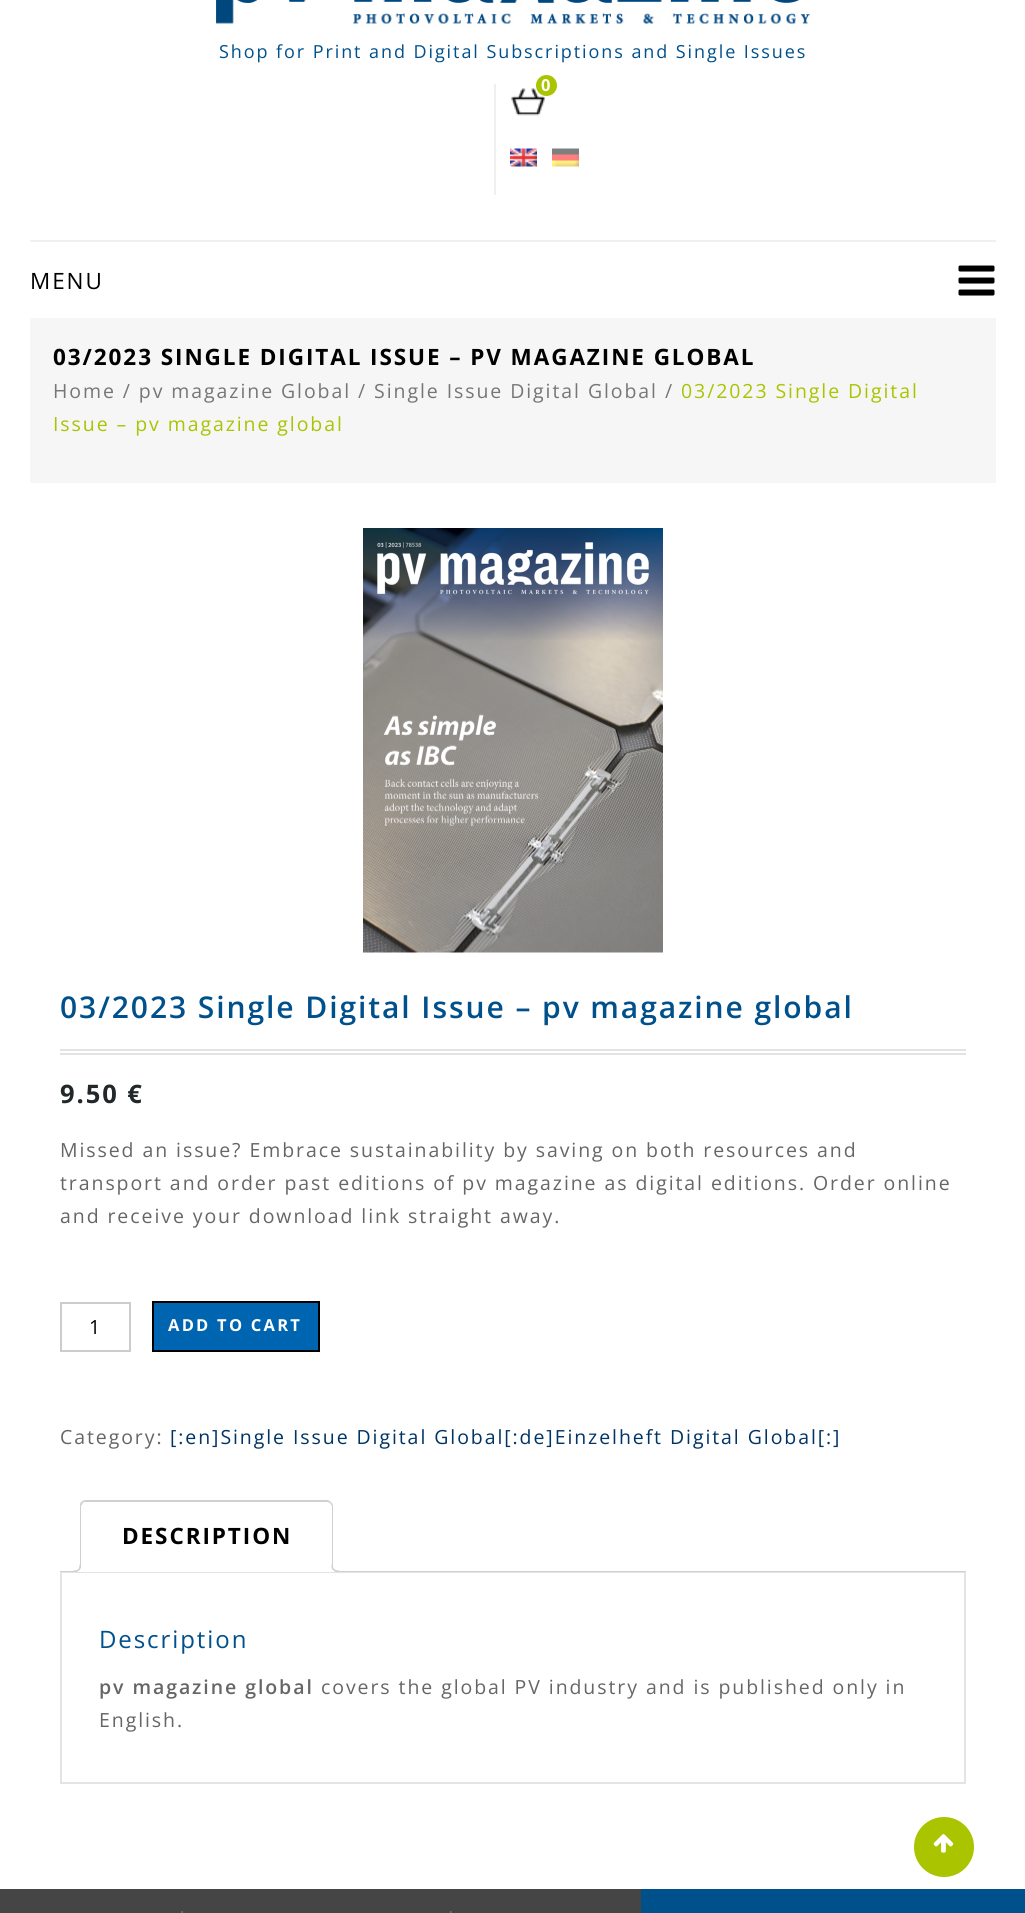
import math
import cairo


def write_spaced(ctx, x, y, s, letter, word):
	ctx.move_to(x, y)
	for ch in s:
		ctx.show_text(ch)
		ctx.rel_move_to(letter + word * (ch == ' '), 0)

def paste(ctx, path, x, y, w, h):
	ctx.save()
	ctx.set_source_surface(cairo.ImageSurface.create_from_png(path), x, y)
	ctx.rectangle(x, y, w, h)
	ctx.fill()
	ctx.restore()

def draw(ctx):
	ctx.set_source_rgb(1, 1, 1)
	ctx.paint()
	paste(ctx, 'media/1.png', 216, 0, 597, 26)
	ctx.select_font_face('Open Sans')
	ctx.set_font_size(18)
	ctx.set_source_rgb(0, 0.314, 0.549)
	write_spaced(ctx, 219, 58, 'Shop for Print and Digital Subscriptions and Single Issues', 1.92, 0)
	ctx.set_source_rgb(0.937, 0.937, 0.937)
	ctx.rectangle(494, 84, 2, 111)
	ctx.fill()
	paste(ctx, 'media/2.png', 511, 88, 34, 28)
	ctx.set_source_rgb(0.667, 0.769, 0)
	ctx.arc(546.5, 85.5, 10.5, 0, 2 * math.pi)
	ctx.fill()
	ctx.select_font_face('Open Sans', cairo.FONT_SLANT_NORMAL, cairo.FONT_WEIGHT_BOLD)
	ctx.set_font_size(16.5)
	ctx.set_source_rgb(1, 1, 1)
	ctx.move_to(541, 91)
	ctx.show_text('0')
	paste(ctx, 'media/3.png', 510, 148, 27, 19)
	paste(ctx, 'media/4.png', 552, 148, 27, 19)
	ctx.set_source_rgb(0.941, 0.941, 0.941)
	ctx.rectangle(30, 240, 966, 2)
	ctx.fill()
	ctx.select_font_face('Open Sans')
	ctx.set_font_size(22.5)
	ctx.set_source_rgb(0, 0, 0)
	write_spaced(ctx, 30, 289, 'MENU', 1.92, 0)
	paste(ctx, 'media/5.png', 958, 265, 37, 31)
	ctx.set_source_rgb(0.961, 0.961, 0.961)
	ctx.rectangle(30, 318, 966, 165)
	ctx.fill()
	ctx.select_font_face('Open Sans', cairo.FONT_SLANT_NORMAL, cairo.FONT_WEIGHT_BOLD)
	ctx.set_source_rgb(0, 0, 0)
	write_spaced(ctx, 53, 365, '03/2023 SINGLE DIGITAL ISSUE – PV MAGAZINE GLOBAL', 1.92, 0)
	ctx.select_font_face('Open Sans')
	ctx.set_font_size(19.5)
	ctx.set_source_rgb(0.463, 0.463, 0.463)
	write_spaced(ctx, 53, 398, 'Home / pv magazine Global / Single Issue Digital Global /', 1.92, 0)
	ctx.set_source_rgb(0.667, 0.769, 0)
	write_spaced(ctx, 681, 398, '03/2023 Single Digital', 1.92, 0)
	write_spaced(ctx, 53, 431, 'Issue – pv magazine global', 1.92, 0)
	paste(ctx, 'media/6.png', 363, 528, 300, 425)
	ctx.set_source_rgb(0.894, 0.89, 0.89)
	ctx.rectangle(60, 1049, 906, 2)
	ctx.fill()
	ctx.rectangle(60, 1053, 906, 2)
	ctx.fill()
	ctx.select_font_face('Open Sans SemiBold')
	ctx.set_font_size(30)
	ctx.set_source_rgb(0, 0.314, 0.549)
	write_spaced(ctx, 60, 1018, '03/2023 Single Digital Issue – pv magazine global', 1.92, 0)
	ctx.select_font_face('Open Sans', cairo.FONT_SLANT_NORMAL, cairo.FONT_WEIGHT_BOLD)
	ctx.set_font_size(25.5)
	ctx.set_source_rgb(0.133, 0.153, 0.165)
	write_spaced(ctx, 60, 1103, '9.50 €', 1.92, 0)
	ctx.select_font_face('Open Sans')
	ctx.set_font_size(19.5)
	ctx.set_source_rgb(0.4, 0.4, 0.4)
	for x, y, s in [
		(60, 1157, 'Missed an issue? Embrace sustainability by saving on both resources and'),
		(60, 1190, 'transport and order past editions of pv magazine as digital editions. Order online'),
		(60, 1223, 'and receive your download link straight away.'),
	]:
		write_spaced(ctx, x, y, s, 1.92, 0)
	ctx.rectangle(61, 1303, 69, 48)
	ctx.set_source_rgb(0.8, 0.8, 0.8)
	ctx.stroke()
	ctx.set_source_rgb(0, 0, 0)
	write_spaced(ctx, 89, 1334, '1', 1.92, 0)
	ctx.set_source_rgb(0, 0.396, 0.69)
	ctx.rectangle(153, 1302, 166, 49)
	ctx.fill_preserve()
	ctx.set_source_rgb(0, 0, 0)
	ctx.stroke()
	ctx.select_font_face('Open Sans', cairo.FONT_SLANT_NORMAL, cairo.FONT_WEIGHT_BOLD)
	ctx.set_font_size(16.5)
	ctx.set_source_rgb(1, 1, 1)
	write_spaced(ctx, 168, 1331, 'ADD TO CART', 2.25, 0)
	ctx.select_font_face('Open Sans')
	ctx.set_font_size(19.5)
	ctx.set_source_rgb(0.4, 0.4, 0.4)
	write_spaced(ctx, 60, 1444, 'Category:', 1.92, 0)
	ctx.set_source_rgb(0, 0.204, 0.392)
	write_spaced(ctx, 170, 1444, '[:en]Single Issue Digital Global[:de]Einzelheft Digital Global[:]', 1.92, 0)
	ctx.rectangle(61, 1572, 904, 211)
	ctx.set_source_rgb(0.894, 0.894, 0.894)
	ctx.stroke()
	ctx.set_source_rgb(0.827, 0.808, 0.824)
	ctx.rectangle(60, 1571, 906, 1)
	ctx.fill()
	ctx.set_source_rgb(1, 1, 1)
	ctx.new_path()
	ctx.move_to(86, 1500)
	ctx.line_to(327, 1500)
	ctx.curve_to(330.5, 1500, 333, 1502.5, 333, 1506)
	ctx.line_to(333, 1572)
	ctx.line_to(80, 1572)
	ctx.line_to(80, 1506)
	ctx.curve_to(80, 1502.5, 82.5, 1500, 86, 1500)
	ctx.close_path()
	ctx.fill()
	ctx.set_source_rgb(0.827, 0.808, 0.824)
	ctx.new_path()
	ctx.move_to(86, 1500)
	ctx.curve_to(84, 1500, 82, 1501, 81, 1502)
	ctx.line_to(83, 1503)
	ctx.curve_to(83, 1502, 85, 1502, 86, 1502)
	ctx.line_to(327, 1502)
	ctx.line_to(330, 1503)
	ctx.line_to(331, 1502)
	ctx.curve_to(330, 1501, 328, 1500, 327, 1500)
	ctx.close_path()
	ctx.fill()
	ctx.new_path()
	ctx.move_to(333, 1572)
	ctx.line_to(333, 1506)
	ctx.curve_to(333, 1504, 332, 1503, 331, 1502)
	ctx.line_to(330, 1503)
	ctx.line_to(332, 1506)
	ctx.line_to(332, 1570)
	ctx.line_to(331, 1570)
	ctx.close_path()
	ctx.fill()
	ctx.set_source_rgb(1, 1, 1)
	ctx.new_path()
	ctx.move_to(333, 1572)
	ctx.line_to(331, 1570)
	ctx.line_to(82, 1570)
	ctx.line_to(80, 1572)
	ctx.close_path()
	ctx.fill()
	ctx.set_source_rgb(0.827, 0.808, 0.824)
	ctx.new_path()
	ctx.move_to(81, 1502)
	ctx.curve_to(80, 1503, 80, 1505, 80, 1506)
	ctx.line_to(80, 1572)
	ctx.line_to(82, 1570)
	ctx.line_to(81, 1570)
	ctx.line_to(81, 1506)
	ctx.line_to(83, 1503)
	ctx.close_path()
	ctx.fill()
	ctx.select_font_face('Open Sans', cairo.FONT_SLANT_NORMAL, cairo.FONT_WEIGHT_BOLD)
	ctx.set_font_size(22.5)
	ctx.set_source_rgb(0, 0, 0)
	write_spaced(ctx, 122, 1544, 'DESCRIPTION', 1.92, 0)
	ctx.save()
	ctx.rectangle(60, 1500, 906, 72)
	ctx.clip()
	ctx.set_source_rgb(1, 1, 1)
	ctx.new_path()
	ctx.move_to(77, 1571.5)
	ctx.line_to(77, 1575)
	ctx.curve_to(81.5, 1575, 84, 1572.5, 84, 1568)
	ctx.line_to(80.5, 1568)
	ctx.curve_to(80, 1569.5, 78.5, 1571, 77, 1571.5)
	ctx.close_path()
	ctx.fill()
	ctx.restore()
	ctx.set_source_rgb(0.827, 0.808, 0.824)
	ctx.set_fill_rule(cairo.FILL_RULE_EVEN_ODD)
	ctx.new_path()
	ctx.move_to(73.5, 1564.5)
	ctx.line_to(81, 1564.5)
	ctx.curve_to(81, 1570, 79, 1572, 73.5, 1572)
	ctx.close_path()
	ctx.move_to(73.5, 1564.5)
	ctx.line_to(79.5, 1564.5)
	ctx.curve_to(79.5, 1569, 78, 1570.5, 73.5, 1570.5)
	ctx.close_path()
	ctx.fill()
	ctx.save()
	ctx.set_fill_rule(cairo.FILL_RULE_WINDING)
	ctx.rectangle(60, 1500, 906, 72)
	ctx.clip()
	ctx.set_source_rgb(1, 1, 1)
	ctx.new_path()
	ctx.move_to(329, 1568)
	ctx.curve_to(329, 1572.5, 331.5, 1575, 336, 1575)
	ctx.line_to(336, 1572)
	ctx.curve_to(334, 1571.5, 332.5, 1570, 332, 1568)
	ctx.close_path()
	ctx.fill()
	ctx.restore()
	ctx.new_path()
	ctx.move_to(331.5, 1564.5)
	ctx.line_to(339, 1564.5)
	ctx.line_to(339, 1572)
	ctx.curve_to(335, 1572, 331.5, 1570.5, 331.5, 1566)
	ctx.close_path()
	ctx.move_to(333, 1564.5)
	ctx.line_to(339, 1564.5)
	ctx.line_to(339, 1570.5)
	ctx.curve_to(336, 1570.5, 333, 1569.5, 333, 1566)
	ctx.close_path()
	ctx.fill()
	ctx.select_font_face('Open Sans')
	ctx.set_font_size(24)
	ctx.set_source_rgb(0, 0.314, 0.549)
	write_spaced(ctx, 99, 1648, 'Description', 1.92, 0)
	ctx.select_font_face('Open Sans SemiBold')
	ctx.set_font_size(19.5)
	ctx.set_source_rgb(0.4, 0.4, 0.4)
	write_spaced(ctx, 99, 1694, 'pv magazine global', 1.92, 0)
	ctx.select_font_face('Open Sans')
	write_spaced(ctx, 321, 1694, 'covers the global PV industry and is published only in', 1.92, 0)
	write_spaced(ctx, 99, 1727, 'English.', 1.92, 0)
	ctx.set_source_rgb(0, 0.314, 0.549)
	ctx.rectangle(641, 1889, 384, 24)
	ctx.fill()
	ctx.set_source_rgb(0.271, 0.271, 0.271)
	ctx.rectangle(0, 1889, 641, 24)
	ctx.fill()
	paste(ctx, 'media/7.png', 181, 1911, 2, 2)
	paste(ctx, 'media/8.png', 450, 1911, 2, 2)
	ctx.set_source_rgb(0.667, 0.769, 0)
	ctx.arc(944, 1847, 30, 0, 2 * math.pi)
	ctx.fill()
	paste(ctx, 'media/9.png', 933, 1834, 21, 19)


surface = cairo.ImageSurface(cairo.FORMAT_RGB24, 1025, 1913)
ctx = cairo.Context(surface)
options = cairo.FontOptions()
options.set_hint_metrics(cairo.HINT_METRICS_OFF)
options.set_hint_style(cairo.HINT_STYLE_NONE)
ctx.set_font_options(options)
ctx.set_miter_limit(4)
draw(ctx)
surface.write_to_png('image.png')
